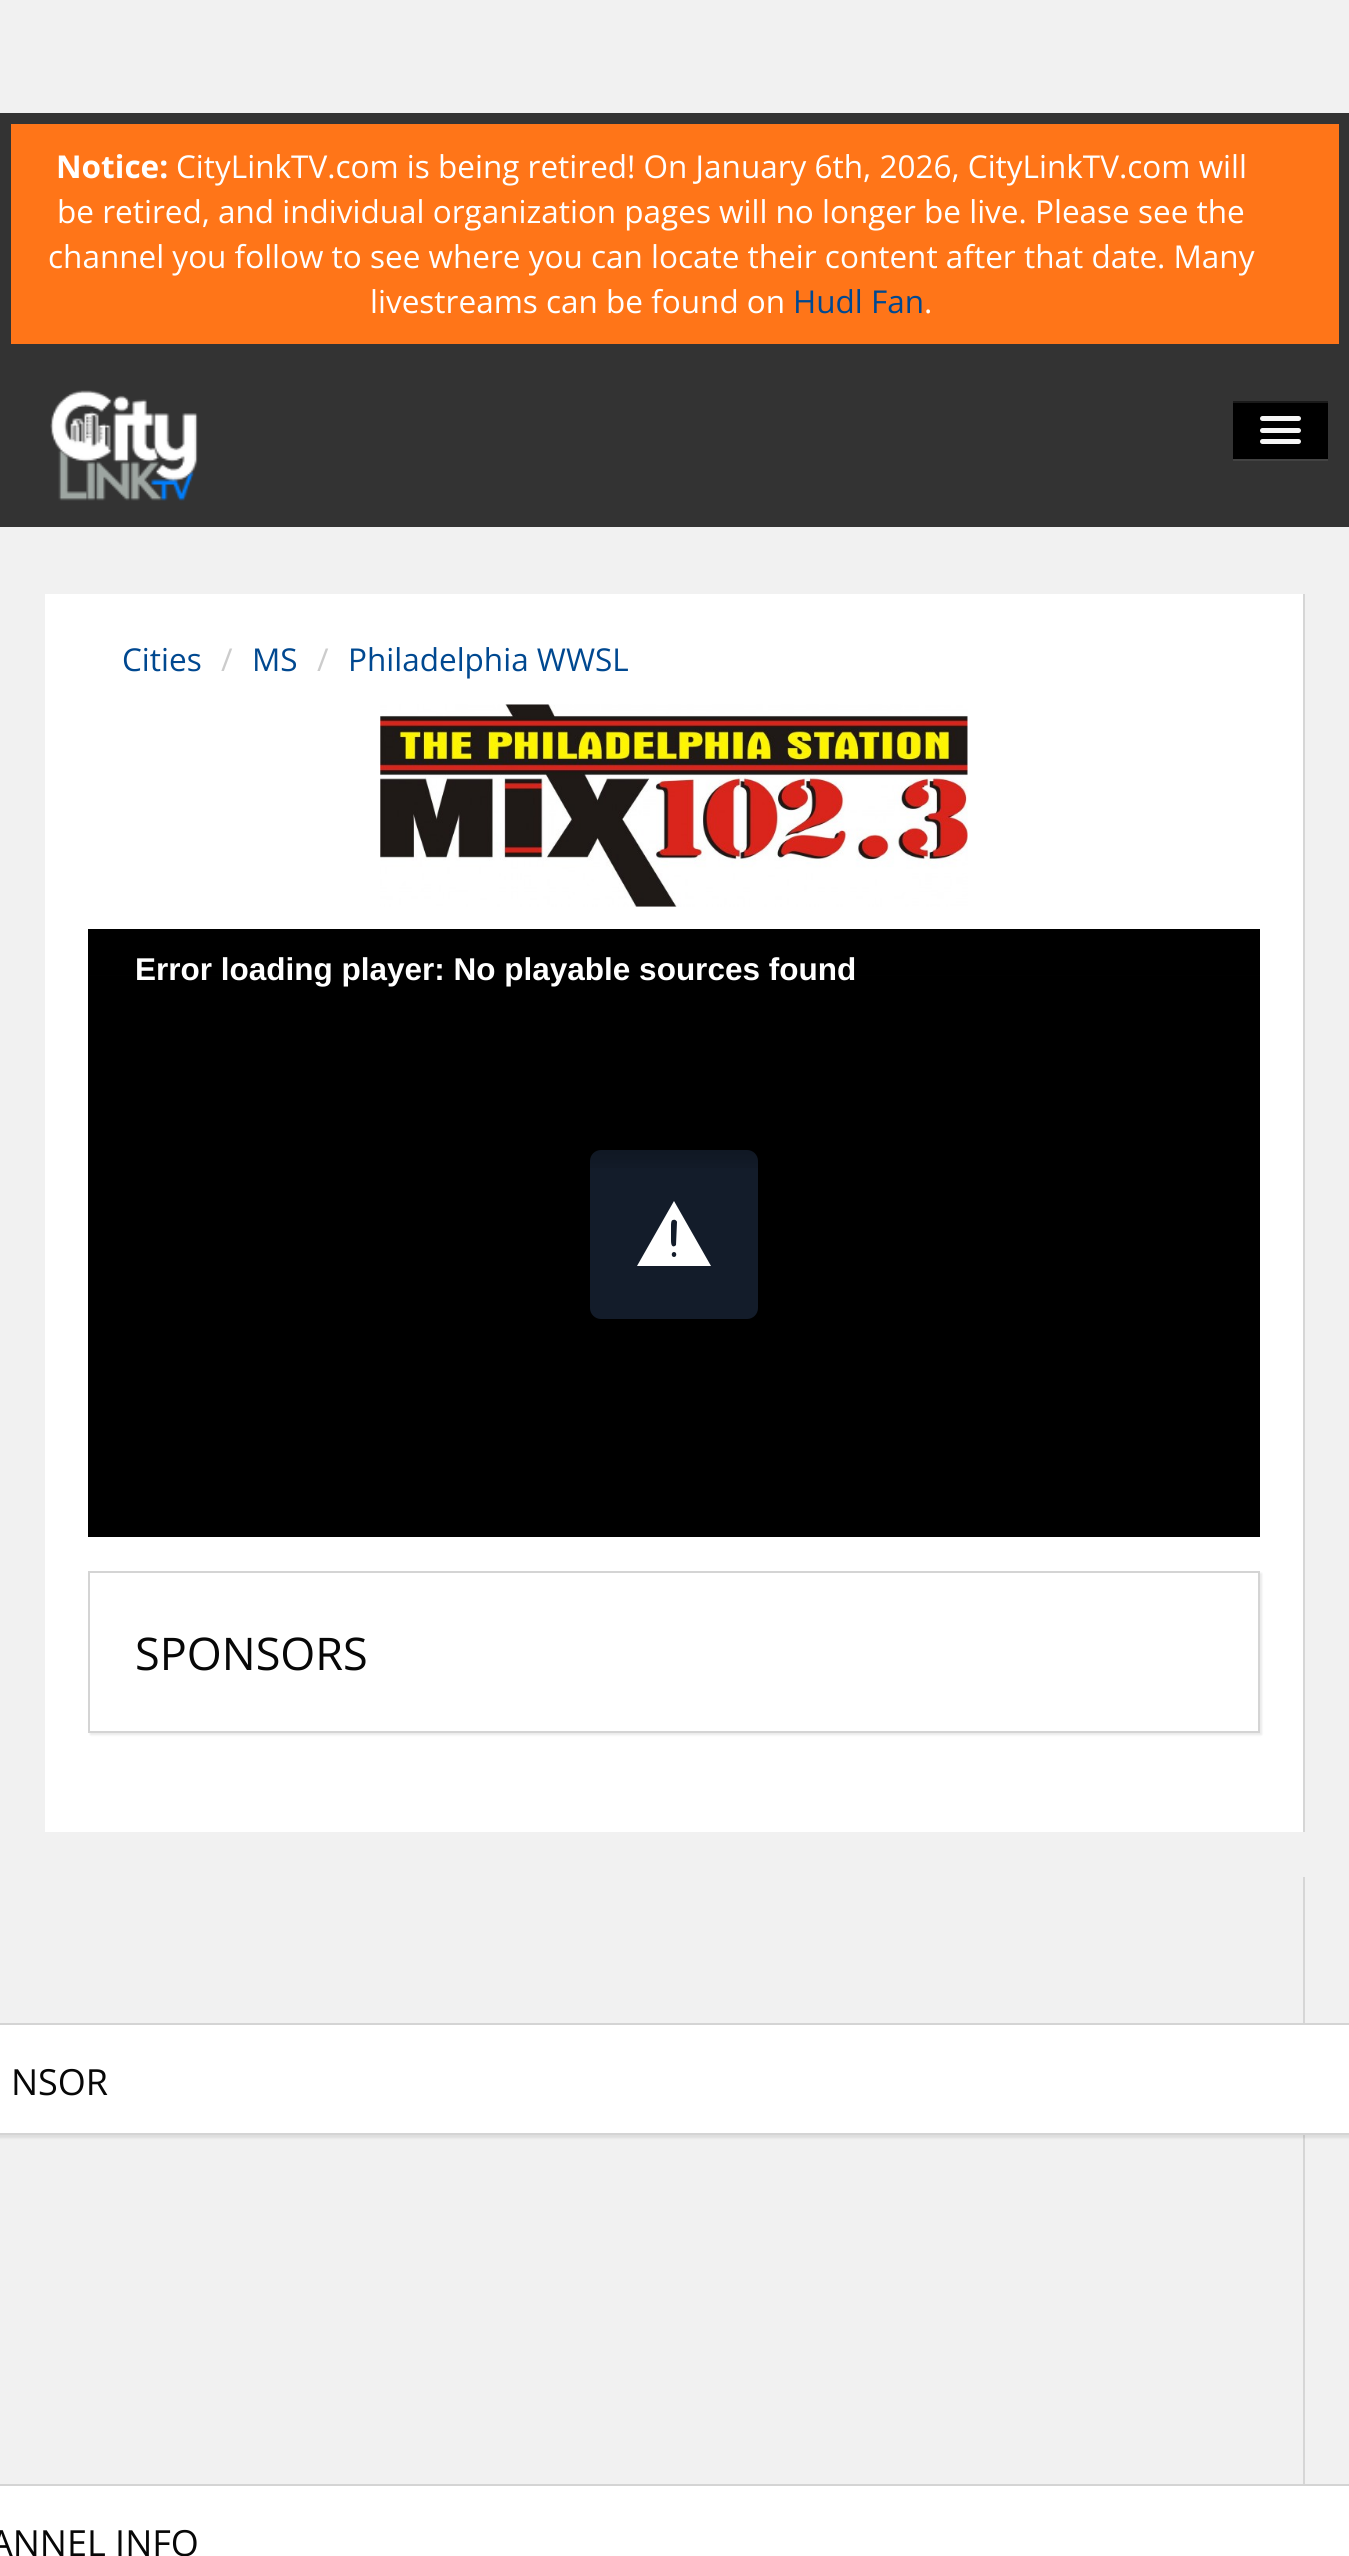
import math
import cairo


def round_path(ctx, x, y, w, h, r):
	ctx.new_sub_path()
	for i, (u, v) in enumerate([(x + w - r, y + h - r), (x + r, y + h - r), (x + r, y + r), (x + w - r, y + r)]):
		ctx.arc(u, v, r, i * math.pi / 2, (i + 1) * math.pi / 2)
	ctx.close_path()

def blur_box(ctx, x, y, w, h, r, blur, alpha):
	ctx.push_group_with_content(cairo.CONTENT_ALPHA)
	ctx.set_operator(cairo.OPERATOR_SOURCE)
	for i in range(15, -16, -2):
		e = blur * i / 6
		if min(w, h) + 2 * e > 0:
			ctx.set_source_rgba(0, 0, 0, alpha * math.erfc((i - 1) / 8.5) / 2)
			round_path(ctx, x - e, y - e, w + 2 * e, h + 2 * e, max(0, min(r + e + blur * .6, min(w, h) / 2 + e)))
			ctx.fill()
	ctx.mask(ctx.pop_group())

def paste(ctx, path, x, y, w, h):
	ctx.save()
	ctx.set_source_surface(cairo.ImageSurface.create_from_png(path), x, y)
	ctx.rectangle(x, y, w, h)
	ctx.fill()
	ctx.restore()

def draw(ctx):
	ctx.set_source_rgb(0.945, 0.945, 0.945)
	ctx.paint()
	ctx.set_source_rgb(0.2, 0.2, 0.2)
	ctx.rectangle(0, 113, 1349, 414)
	ctx.fill()
	ctx.set_source_rgb(1, 0.459, 0.094)
	ctx.rectangle(11, 124, 1328, 220)
	ctx.fill()
	ctx.select_font_face('Open Sans', cairo.FONT_SLANT_NORMAL, cairo.FONT_WEIGHT_BOLD)
	ctx.set_font_size(31.5)
	ctx.set_source_rgb(1, 1, 1)
	ctx.move_to(56, 178)
	ctx.show_text('Notice:')
	ctx.select_font_face('Open Sans')
	for x, y, s in [
		(176, 178, 'CityLinkTV.com is being retired! On January 6th, 2026, CityLinkTV.com will'),
		(57, 223, 'be retired, and individual organization pages will no longer be live. Please see the'),
		(48, 268, 'channel you follow to see where you can locate their content after that date. Many'),
		(370, 313, 'livestreams can be found on'),
	]:
		ctx.move_to(x, y)
		ctx.show_text(s)
	ctx.set_source_rgb(0, 0.282, 0.565)
	ctx.move_to(793, 313)
	ctx.show_text('Hudl Fan')
	ctx.set_source_rgb(1, 1, 1)
	ctx.move_to(924, 313)
	ctx.show_text('.')
	paste(ctx, 'media/1.png', 50, 390, 148, 111)
	ctx.set_source_rgb(0.259, 0.259, 0.259)
	ctx.new_path()
	ctx.move_to(1233, 459)
	ctx.line_to(1233, 461)
	ctx.line_to(1328, 461)
	ctx.line_to(1328, 403)
	ctx.line_to(1328, 459)
	ctx.close_path()
	ctx.fill()
	ctx.set_source_rgb(0, 0, 0)
	ctx.rectangle(1233, 403, 95, 56)
	ctx.fill()
	ctx.set_source_rgb(0.102, 0.102, 0.102)
	ctx.rectangle(1233, 401, 95, 2)
	ctx.fill()
	ctx.set_source_rgb(0.961, 0.961, 0.961)
	round_path(ctx, 1260, 416, 41, 5, 2.5)
	ctx.fill()
	round_path(ctx, 1260, 428, 41, 5, 2.5)
	ctx.fill()
	round_path(ctx, 1260, 439, 41, 5, 2.5)
	ctx.fill()
	ctx.set_source_rgb(1, 1, 1)
	ctx.rectangle(45, 594, 1258, 1238)
	ctx.fill()
	ctx.set_source_rgb(0.839, 0.839, 0.839)
	ctx.rectangle(1303, 594, 2, 1238)
	ctx.fill()
	ctx.set_source_rgb(0, 0.282, 0.565)
	ctx.move_to(122, 671)
	ctx.show_text('Cities')
	ctx.set_source_rgb(0.8, 0.8, 0.8)
	ctx.move_to(221, 671)
	ctx.show_text('/')
	ctx.set_source_rgb(0, 0.282, 0.565)
	ctx.move_to(252, 671)
	ctx.show_text('MS')
	ctx.set_source_rgb(0.8, 0.8, 0.8)
	ctx.move_to(317, 671)
	ctx.show_text('/')
	ctx.set_source_rgb(0, 0.282, 0.565)
	ctx.move_to(348, 671)
	ctx.show_text('Philadelphia WWSL')
	paste(ctx, 'media/2.png', 380, 704, 588, 203)
	ctx.set_source_rgb(0, 0, 0)
	ctx.rectangle(88, 976, 1172, 561)
	ctx.fill()
	ctx.set_source_rgb(0.075, 0.11, 0.165)
	round_path(ctx, 590, 1150, 168, 169, 11)
	ctx.fill()
	gradient = cairo.LinearGradient(674, 929, 674, 1181)
	gradient.add_color_stop_rgba(0, 0, 0, 0, 1)
	gradient.add_color_stop_rgba(0.18, 0, 0, 0, 1)
	gradient.add_color_stop_rgba(1, 0, 0, 0, 0)
	ctx.set_source(gradient)
	ctx.rectangle(88, 929, 1172, 239)
	ctx.fill()
	ctx.select_font_face('Liberation Sans', cairo.FONT_SLANT_NORMAL, cairo.FONT_WEIGHT_BOLD)
	ctx.set_source_rgb(1, 1, 1)
	ctx.move_to(135, 980)
	ctx.show_text('Error loading player: No playable sources found')
	ctx.new_path()
	ctx.move_to(637, 1266)
	ctx.line_to(674, 1201)
	ctx.line_to(711, 1266)
	ctx.close_path()
	ctx.move_to(674, 1257)
	ctx.curve_to(677, 1257, 677, 1252, 674, 1252)
	ctx.curve_to(671, 1252, 671, 1257, 674, 1257)
	ctx.close_path()
	ctx.move_to(677, 1222)
	ctx.curve_to(677, 1221, 675, 1219, 673, 1220)
	ctx.curve_to(671, 1220, 671, 1224, 671, 1226)
	ctx.line_to(671, 1240)
	ctx.curve_to(671, 1242, 671, 1248, 675, 1246)
	ctx.line_to(676, 1245)
	ctx.close_path()
	ctx.fill()
	ctx.set_source_rgb(0, 0, 0)
	blur_box(ctx, 90, 1573, 1172, 162, 0, 1, 0.08)
	ctx.set_source_rgb(1, 1, 1)
	ctx.rectangle(89, 1572, 1170, 160)
	ctx.fill_preserve()
	ctx.set_source_rgb(0.831, 0.831, 0.831)
	ctx.stroke()
	ctx.select_font_face('Open Sans')
	ctx.set_font_size(45)
	ctx.set_source_rgb(0.031, 0.031, 0.031)
	ctx.move_to(135, 1670)
	ctx.show_text('SPONSORS')
	ctx.set_source_rgb(0.839, 0.839, 0.839)
	ctx.rectangle(1303, 1877, 2, 607)
	ctx.fill()
	ctx.set_source_rgb(0, 0, 0)
	blur_box(ctx, -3, 2025, 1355, 113, 0, 1, 0.08)
	ctx.set_source_rgb(1, 1, 1)
	ctx.rectangle(0, 2025, 1349, 108)
	ctx.fill()
	ctx.set_source_rgb(0.831, 0.831, 0.831)
	ctx.rectangle(0, 2023, 1349, 2)
	ctx.rectangle(0, 2133, 1349, 2)
	ctx.fill()
	ctx.set_font_size(36)
	ctx.set_source_rgb(0.031, 0.031, 0.031)
	ctx.move_to(11, 2095)
	ctx.show_text('NSOR')
	ctx.set_source_rgb(1, 1, 1)
	ctx.rectangle(0, 2486, 1349, 70)
	ctx.fill()
	ctx.set_source_rgb(0.831, 0.831, 0.831)
	ctx.rectangle(0, 2484, 1349, 2)
	ctx.fill()
	ctx.set_source_rgb(0.031, 0.031, 0.031)
	ctx.move_to(-10, 2556)
	ctx.show_text('ANNEL INFO')


surface = cairo.ImageSurface(cairo.FORMAT_RGB24, 1349, 2556)
ctx = cairo.Context(surface)
options = cairo.FontOptions()
options.set_hint_metrics(cairo.HINT_METRICS_OFF)
options.set_hint_style(cairo.HINT_STYLE_NONE)
ctx.set_font_options(options)
ctx.set_miter_limit(4)
draw(ctx)
surface.write_to_png('image.png')
